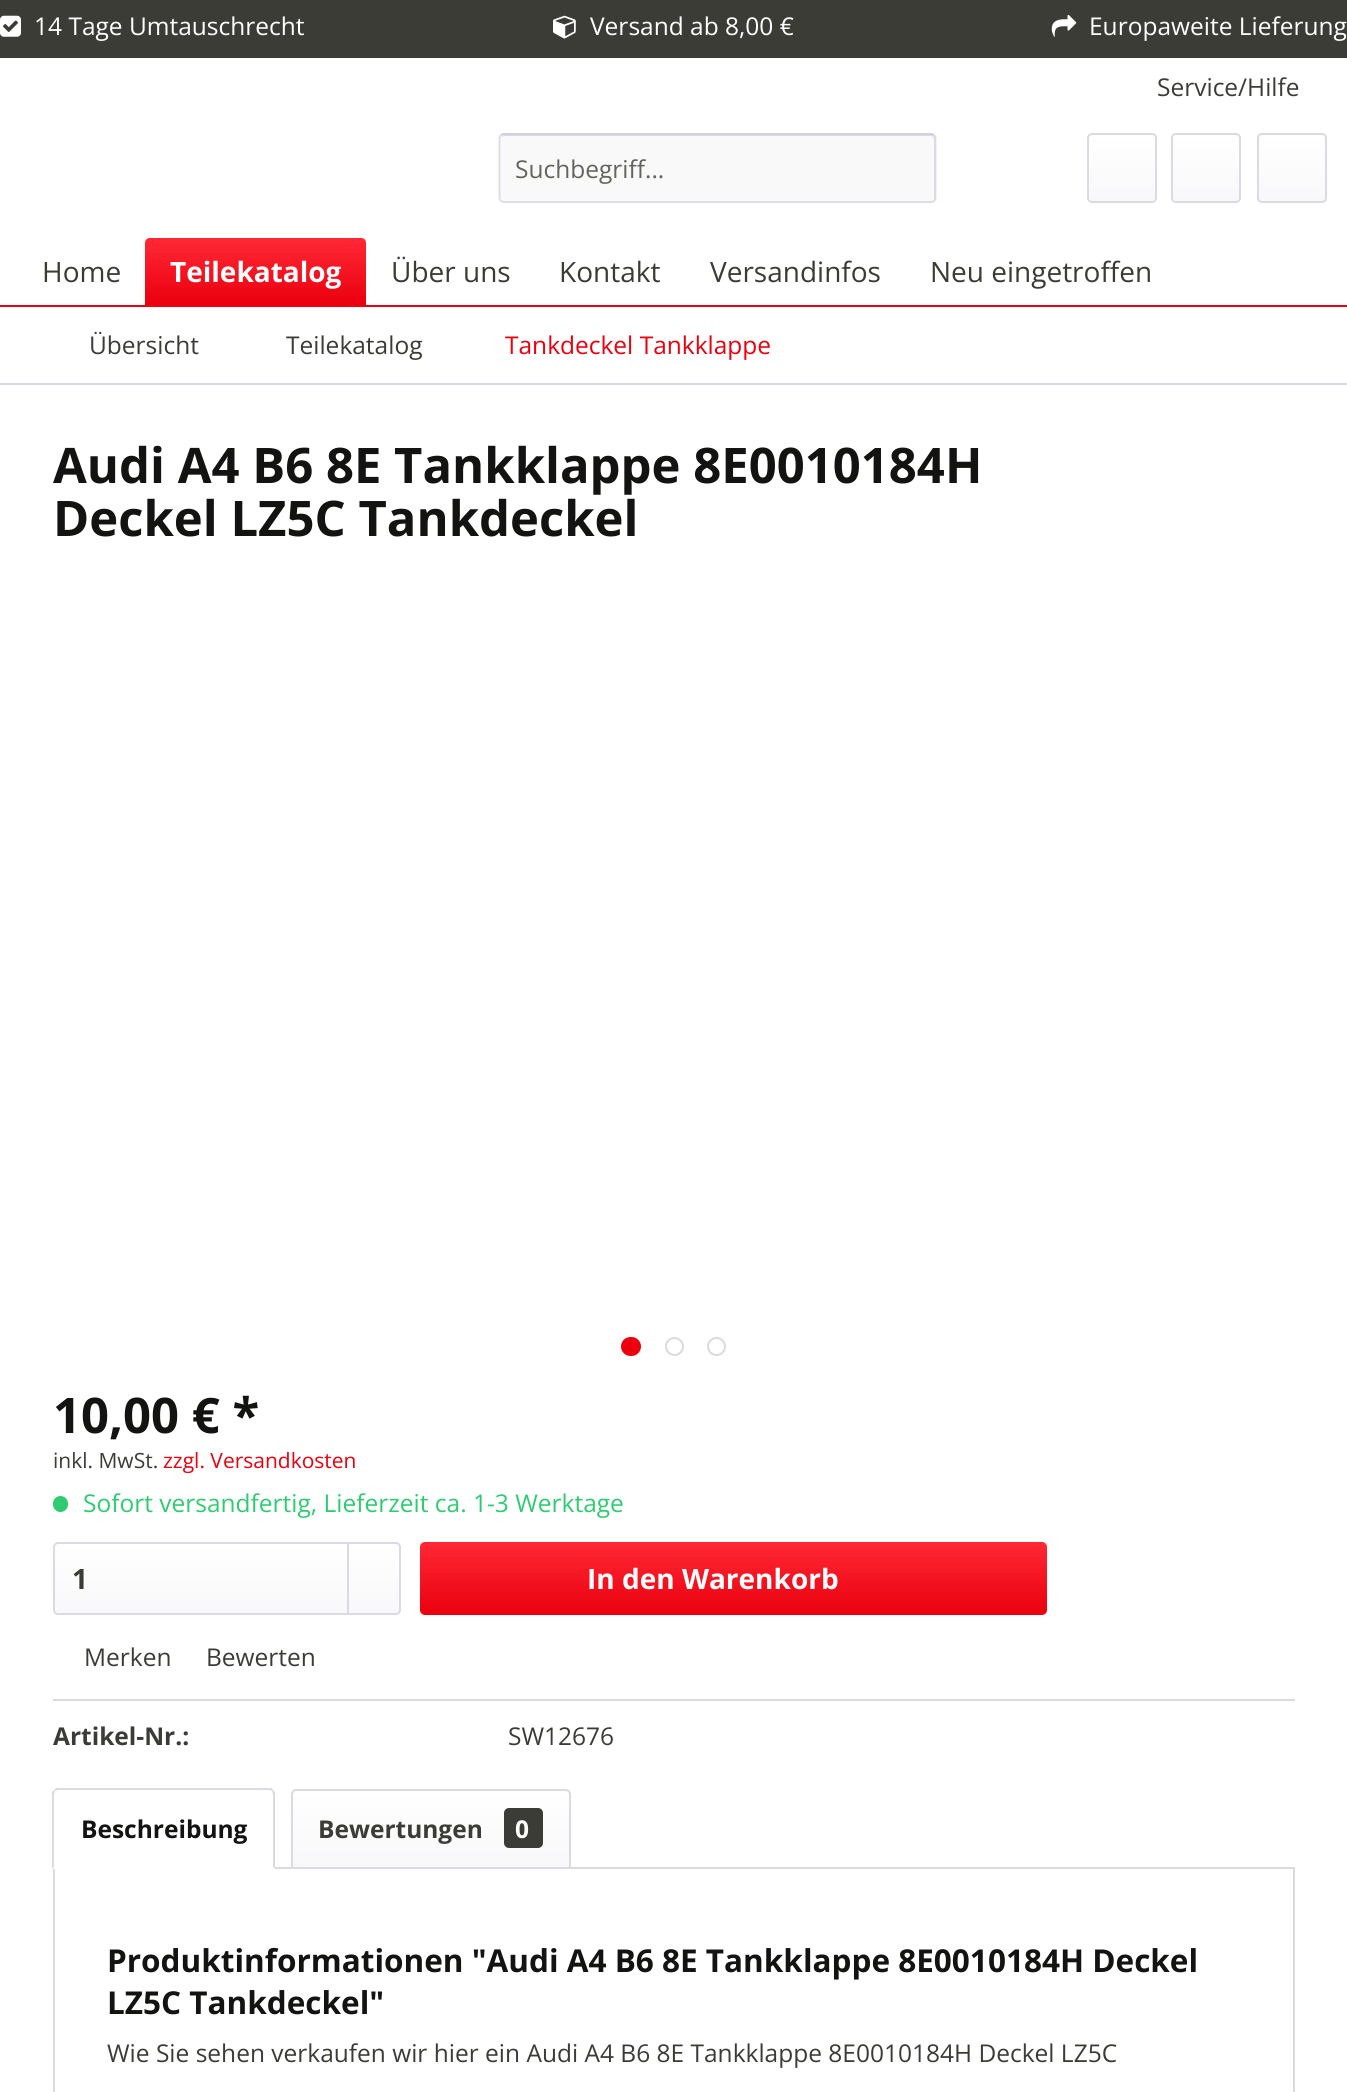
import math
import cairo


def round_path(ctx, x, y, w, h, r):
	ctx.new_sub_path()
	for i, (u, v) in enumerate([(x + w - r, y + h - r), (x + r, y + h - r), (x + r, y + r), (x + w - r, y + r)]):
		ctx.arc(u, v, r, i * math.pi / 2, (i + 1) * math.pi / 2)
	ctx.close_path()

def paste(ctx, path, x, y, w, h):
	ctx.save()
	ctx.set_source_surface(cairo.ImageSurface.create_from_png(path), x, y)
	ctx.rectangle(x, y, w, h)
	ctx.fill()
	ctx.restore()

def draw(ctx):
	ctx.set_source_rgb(1, 1, 1)
	ctx.paint()
	ctx.set_source_rgb(0.235, 0.235, 0.216)
	ctx.rectangle(0, 0, 1347, 58)
	ctx.fill()
	paste(ctx, 'media/1.png', 0, 15, 21, 22)
	ctx.select_font_face('Open Sans')
	ctx.set_font_size(24.5)
	ctx.set_source_rgb(1, 1, 1)
	ctx.move_to(34, 35)
	ctx.show_text('14 Tage Umtauschrecht')
	paste(ctx, 'media/2.png', 553, 15, 23, 24)
	ctx.move_to(590, 35)
	ctx.show_text('Versand ab 8,00 €')
	paste(ctx, 'media/3.png', 1051, 14, 26, 23)
	ctx.move_to(1089, 35)
	ctx.show_text('Europaweite Lieferung')
	ctx.set_source_rgb(0.235, 0.235, 0.216)
	ctx.move_to(1157, 96)
	ctx.show_text('Service/Hilfe')
	ctx.set_source_rgb(0.973, 0.973, 0.98)
	round_path(ctx, 499, 133, 437, 70, 5)
	ctx.fill()
	ctx.set_source_rgb(0.855, 0.855, 0.898)
	ctx.new_path()
	ctx.move_to(504, 136)
	ctx.line_to(931, 136)
	ctx.curve_to(933, 136, 934, 138, 934, 140)
	ctx.line_to(934, 200)
	ctx.curve_to(935, 199, 935, 198, 935, 197)
	ctx.line_to(935, 139)
	ctx.curve_to(935, 137, 933, 135, 931, 135)
	ctx.line_to(505, 135)
	ctx.curve_to(504, 135, 502, 136, 502, 137)
	ctx.close_path()
	ctx.fill()
	ctx.new_path()
	ctx.move_to(501, 135)
	ctx.line_to(504, 134)
	ctx.line_to(931, 134)
	ctx.line_to(934, 135)
	ctx.set_source_rgb(0.796, 0.796, 0.859)
	ctx.set_line_width(1.8)
	ctx.stroke()
	ctx.new_path()
	ctx.move_to(934, 135)
	ctx.curve_to(935, 136, 935.5, 137, 935.5, 138)
	ctx.line_to(935.5, 198)
	ctx.curve_to(935.5, 199, 935, 200, 934, 201)
	ctx.curve_to(933.5, 201.5, 932, 202, 931, 202)
	ctx.line_to(504, 202)
	ctx.curve_to(503, 202, 501.5, 201.5, 501, 201)
	ctx.curve_to(500, 200, 499.5, 199, 499.5, 198)
	ctx.line_to(499.5, 138)
	ctx.curve_to(499.5, 137, 500, 136, 501, 135)
	ctx.set_source_rgb(0.855, 0.855, 0.898)
	ctx.stroke()
	ctx.set_source_rgb(0.392, 0.392, 0.361)
	ctx.move_to(515, 178)
	ctx.show_text('Suchbegriff...')
	gradient = cairo.LinearGradient(1122, 135, 1122, 201)
	gradient.add_color_stop_rgba(0, 1, 1, 1, 1)
	gradient.add_color_stop_rgba(1, 0.973, 0.973, 0.98, 1)
	ctx.set_source(gradient)
	round_path(ctx, 1089, 135, 66, 66, 4)
	ctx.fill()
	round_path(ctx, 1088, 134, 68, 68, 4)
	ctx.set_source_rgb(0.855, 0.855, 0.898)
	ctx.set_line_width(2)
	ctx.stroke()
	gradient = cairo.LinearGradient(1206, 135, 1206, 201)
	gradient.add_color_stop_rgba(0, 1, 1, 1, 1)
	gradient.add_color_stop_rgba(1, 0.973, 0.973, 0.98, 1)
	ctx.set_source(gradient)
	round_path(ctx, 1173, 135, 66, 66, 4)
	ctx.fill()
	round_path(ctx, 1172, 134, 68, 68, 4)
	ctx.set_source_rgb(0.855, 0.855, 0.898)
	ctx.stroke()
	gradient = cairo.LinearGradient(1292, 135, 1292, 201)
	gradient.add_color_stop_rgba(0, 1, 1, 1, 1)
	gradient.add_color_stop_rgba(1, 0.973, 0.973, 0.98, 1)
	ctx.set_source(gradient)
	round_path(ctx, 1258, 135, 67, 66, 4)
	ctx.fill()
	round_path(ctx, 1258, 134, 68, 68, 4)
	ctx.set_source_rgb(0.855, 0.855, 0.898)
	ctx.stroke()
	ctx.set_source_rgb(0.918, 0, 0.055)
	ctx.rectangle(0, 305, 1347, 2)
	ctx.fill()
	ctx.set_font_size(28)
	ctx.set_source_rgb(0.235, 0.235, 0.216)
	ctx.move_to(42, 282)
	ctx.show_text('Home')
	gradient = cairo.LinearGradient(256, 238, 256, 305)
	gradient.add_color_stop_rgba(0, 1, 0.157, 0.208, 1)
	gradient.add_color_stop_rgba(1, 0.918, 0, 0.055, 1)
	ctx.set_source(gradient)
	ctx.new_path()
	ctx.move_to(150, 238)
	ctx.line_to(361, 238)
	ctx.curve_to(364, 238, 366, 240, 366, 243)
	ctx.line_to(366, 305)
	ctx.line_to(145, 305)
	ctx.line_to(145, 243)
	ctx.curve_to(145, 240, 147, 238, 150, 238)
	ctx.close_path()
	ctx.fill()
	ctx.select_font_face('Open Sans', cairo.FONT_SLANT_NORMAL, cairo.FONT_WEIGHT_BOLD)
	ctx.set_source_rgb(1, 1, 1)
	ctx.move_to(170, 282)
	ctx.show_text('Teilekatalog')
	ctx.select_font_face('Open Sans')
	ctx.set_source_rgb(0.235, 0.235, 0.216)
	for x, y, s in [
		(391, 282, 'Über uns'),
		(559, 282, 'Kontakt'),
		(710, 282, 'Versandinfos'),
		(930, 282, 'Neu eingetroffen'),
	]:
		ctx.move_to(x, y)
		ctx.show_text(s)
	ctx.set_source_rgb(0.855, 0.855, 0.898)
	ctx.rectangle(0, 383, 1347, 2)
	ctx.fill()
	ctx.set_font_size(24.5)
	ctx.set_source_rgb(0.235, 0.235, 0.216)
	ctx.move_to(89, 354)
	ctx.show_text('Übersicht')
	ctx.move_to(286, 354)
	ctx.show_text('Teilekatalog')
	ctx.set_source_rgb(0.918, 0, 0.055)
	ctx.move_to(505, 354)
	ctx.show_text('Tankdeckel Tankklappe')
	ctx.select_font_face('Open Sans', cairo.FONT_SLANT_NORMAL, cairo.FONT_WEIGHT_BOLD)
	ctx.set_font_size(49)
	ctx.set_source_rgb(0.078, 0.078, 0.071)
	ctx.move_to(53, 483)
	ctx.show_text('Audi A4 B6 8E Tankklappe 8E0010184H')
	ctx.move_to(53, 536)
	ctx.show_text('Deckel LZ5C Tankdeckel')
	ctx.set_source_rgb(0.918, 0, 0.055)
	round_path(ctx, 622, 1338, 18, 17, 8.5)
	ctx.fill_preserve()
	ctx.stroke()
	ctx.arc(674.5, 1346.5, 8.5, 0, 2 * math.pi)
	ctx.set_source_rgb(0.855, 0.855, 0.898)
	ctx.stroke()
	ctx.arc(716.5, 1346.5, 8.5, 0, 2 * math.pi)
	ctx.stroke()
	ctx.set_source_rgb(0.078, 0.078, 0.071)
	ctx.move_to(53, 1433)
	ctx.show_text('10,00 € *')
	ctx.select_font_face('Open Sans')
	ctx.set_font_size(21)
	ctx.set_source_rgb(0.235, 0.235, 0.216)
	ctx.move_to(53, 1468)
	ctx.show_text('inkl. MwSt.')
	ctx.set_source_rgb(0.918, 0, 0.055)
	ctx.move_to(163, 1468)
	ctx.show_text('zzgl. Versandkosten')
	ctx.set_source_rgb(0.18, 0.8, 0.443)
	round_path(ctx, 53, 1496, 15, 16, 7.5)
	ctx.fill()
	ctx.set_font_size(24.5)
	ctx.move_to(83, 1512)
	ctx.show_text('Sofort versandfertig, Lieferzeit ca. 1-3 Werktage')
	gradient = cairo.LinearGradient(227, 1544, 227, 1614)
	gradient.add_color_stop_rgba(0, 1, 1, 1, 1)
	gradient.add_color_stop_rgba(1, 0.973, 0.973, 0.98, 1)
	ctx.set_source(gradient)
	round_path(ctx, 54, 1544, 345, 70, 4)
	ctx.fill()
	round_path(ctx, 54, 1543, 346, 71, 4)
	ctx.set_source_rgb(0.855, 0.855, 0.898)
	ctx.stroke()
	ctx.select_font_face('Open Sans', cairo.FONT_SLANT_NORMAL, cairo.FONT_WEIGHT_BOLD)
	ctx.set_font_size(28)
	ctx.set_source_rgb(0.235, 0.235, 0.216)
	ctx.move_to(72, 1589)
	ctx.show_text('1')
	ctx.set_source_rgb(0.855, 0.855, 0.898)
	ctx.rectangle(347, 1544, 2, 70)
	ctx.fill()
	gradient = cairo.LinearGradient(733, 1542, 733, 1615)
	gradient.add_color_stop_rgba(0, 1, 0.157, 0.208, 1)
	gradient.add_color_stop_rgba(1, 0.918, 0, 0.055, 1)
	ctx.set_source(gradient)
	round_path(ctx, 420, 1542, 627, 73, 5)
	ctx.fill()
	ctx.set_source_rgb(1, 1, 1)
	ctx.move_to(587, 1589)
	ctx.show_text('In den Warenkorb')
	ctx.set_source_rgb(0.855, 0.855, 0.898)
	ctx.rectangle(53, 1699, 1242, 2)
	ctx.fill()
	ctx.select_font_face('Open Sans')
	ctx.set_font_size(24.5)
	ctx.set_source_rgb(0.235, 0.235, 0.216)
	ctx.move_to(84, 1666)
	ctx.show_text('Merken')
	ctx.move_to(206, 1666)
	ctx.show_text('Bewerten')
	ctx.select_font_face('Open Sans', cairo.FONT_SLANT_NORMAL, cairo.FONT_WEIGHT_BOLD)
	ctx.move_to(53, 1745)
	ctx.show_text('Artikel-Nr.:')
	ctx.select_font_face('Open Sans')
	ctx.move_to(508, 1745)
	ctx.show_text('SW12676')
	ctx.rectangle(54, 1868, 1240, 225)
	ctx.set_source_rgb(0.855, 0.855, 0.898)
	ctx.stroke()
	ctx.set_source_rgb(1, 1, 1)
	ctx.new_path()
	ctx.move_to(58, 1789)
	ctx.line_to(270, 1789)
	ctx.curve_to(273, 1789, 275, 1791, 275, 1794)
	ctx.line_to(275, 1869)
	ctx.line_to(53, 1869)
	ctx.line_to(53, 1794)
	ctx.curve_to(53, 1791, 55, 1789, 58, 1789)
	ctx.close_path()
	ctx.fill()
	ctx.set_source_rgb(0.855, 0.855, 0.898)
	ctx.new_path()
	ctx.move_to(58, 1790)
	ctx.line_to(55, 1791)
	ctx.line_to(54, 1790)
	ctx.line_to(56, 1788)
	ctx.line_to(272, 1788)
	ctx.line_to(273, 1790)
	ctx.line_to(272, 1791)
	ctx.line_to(270, 1790)
	ctx.close_path()
	ctx.fill()
	ctx.new_path()
	ctx.move_to(275, 1792)
	ctx.line_to(275, 1869)
	ctx.line_to(273, 1867)
	ctx.line_to(273, 1794)
	ctx.line_to(272, 1791)
	ctx.line_to(273, 1790)
	ctx.close_path()
	ctx.fill()
	ctx.set_source_rgb(1, 1, 1)
	ctx.new_path()
	ctx.move_to(275, 1869)
	ctx.line_to(273, 1867)
	ctx.line_to(54, 1867)
	ctx.line_to(52, 1869)
	ctx.close_path()
	ctx.fill()
	ctx.set_source_rgb(0.855, 0.855, 0.898)
	ctx.new_path()
	ctx.move_to(52, 1869)
	ctx.line_to(52, 1792)
	ctx.line_to(54, 1790)
	ctx.line_to(55, 1791)
	ctx.line_to(54, 1794)
	ctx.line_to(54, 1867)
	ctx.close_path()
	ctx.fill()
	ctx.select_font_face('Open Sans', cairo.FONT_SLANT_NORMAL, cairo.FONT_WEIGHT_BOLD)
	ctx.set_source_rgb(0.078, 0.078, 0.071)
	ctx.move_to(81, 1838)
	ctx.show_text('Beschreibung')
	gradient = cairo.LinearGradient(431, 1790, 431, 1867)
	gradient.add_color_stop_rgba(0, 1, 1, 1, 1)
	gradient.add_color_stop_rgba(1, 0.973, 0.973, 0.98, 1)
	ctx.set_source(gradient)
	ctx.new_path()
	ctx.move_to(296, 1790)
	ctx.line_to(565, 1790)
	ctx.curve_to(567, 1790, 569, 1792, 569, 1794)
	ctx.line_to(569, 1867)
	ctx.line_to(292, 1867)
	ctx.line_to(292, 1794)
	ctx.curve_to(292, 1792, 294, 1790, 296, 1790)
	ctx.close_path()
	ctx.fill()
	ctx.new_path()
	ctx.move_to(296, 1790)
	ctx.line_to(566, 1790)
	ctx.curve_to(568, 1790, 570, 1792, 570, 1794)
	ctx.line_to(570, 1868)
	ctx.line_to(292, 1868)
	ctx.line_to(292, 1794)
	ctx.curve_to(292, 1792, 294, 1790, 296, 1790)
	ctx.close_path()
	ctx.set_source_rgb(0.855, 0.855, 0.898)
	ctx.stroke()
	ctx.set_source_rgb(0.235, 0.235, 0.216)
	ctx.move_to(318, 1838)
	ctx.show_text('Bewertungen')
	round_path(ctx, 504, 1808, 39, 40, 5)
	ctx.fill()
	ctx.set_source_rgb(1, 1, 1)
	ctx.move_to(515, 1838)
	ctx.show_text('0')
	ctx.set_font_size(31.5)
	ctx.set_source_rgb(0.078, 0.078, 0.071)
	ctx.move_to(107, 1972)
	ctx.show_text('Produktinformationen "Audi A4 B6 8E Tankklappe 8E0010184H Deckel')
	ctx.move_to(107, 2014)
	ctx.show_text('LZ5C Tankdeckel"')
	ctx.select_font_face('Open Sans')
	ctx.set_font_size(24.5)
	ctx.set_source_rgb(0.235, 0.235, 0.216)
	ctx.move_to(107, 2062)
	ctx.show_text('Wie Sie sehen verkaufen wir hier ein Audi A4 B6 8E Tankklappe 8E0010184H Deckel LZ5C')


surface = cairo.ImageSurface(cairo.FORMAT_RGB24, 1347, 2092)
ctx = cairo.Context(surface)
options = cairo.FontOptions()
options.set_hint_metrics(cairo.HINT_METRICS_OFF)
options.set_hint_style(cairo.HINT_STYLE_NONE)
ctx.set_font_options(options)
ctx.set_miter_limit(4)
draw(ctx)
surface.write_to_png('image.png')
